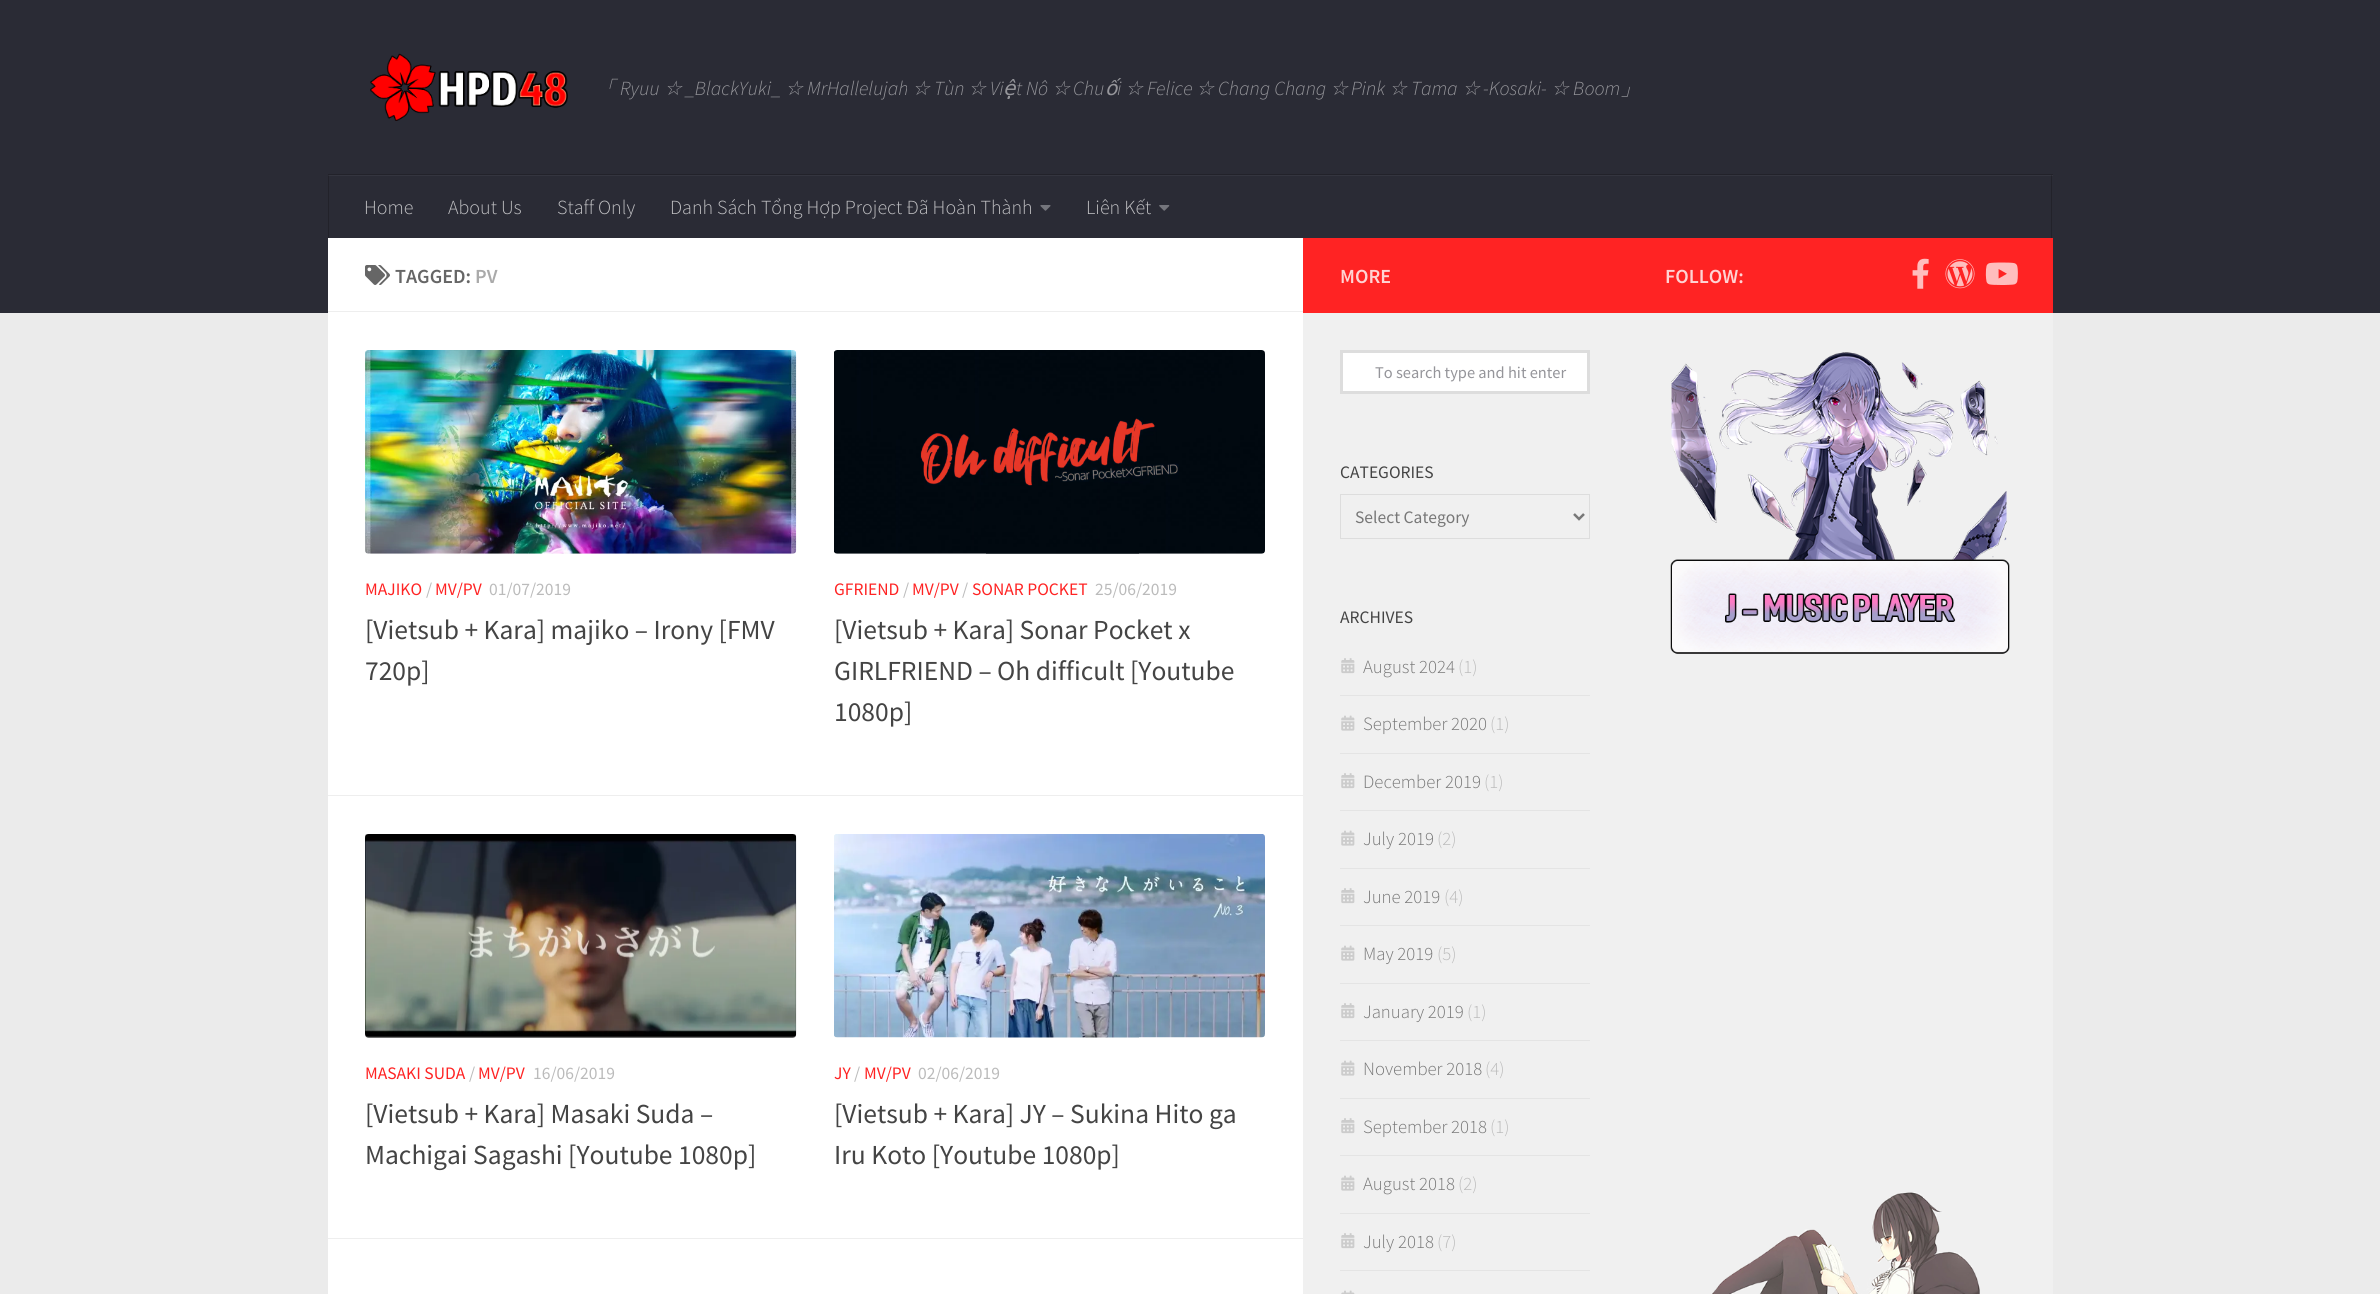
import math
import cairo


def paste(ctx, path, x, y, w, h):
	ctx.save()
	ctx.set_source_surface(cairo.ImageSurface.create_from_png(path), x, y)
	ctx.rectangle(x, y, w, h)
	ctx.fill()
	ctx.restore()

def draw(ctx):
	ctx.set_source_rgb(0.918, 0.918, 0.918)
	ctx.paint()
	ctx.set_source_rgb(0.165, 0.169, 0.208)
	ctx.rectangle(0, 0, 2380, 313)
	ctx.fill()
	paste(ctx, 'media/1.png', 370, 53, 198, 68)
	ctx.select_font_face('WenQuanYi Zen Hei Medium', cairo.FONT_SLANT_ITALIC)
	ctx.set_font_size(20)
	ctx.set_source_rgb(0.584, 0.584, 0.604)
	ctx.move_to(596, 95)
	ctx.show_text('「')
	ctx.select_font_face('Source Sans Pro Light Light', cairo.FONT_SLANT_ITALIC)
	ctx.move_to(620, 95)
	ctx.show_text('Ryuu')
	ctx.select_font_face('DejaVu Sans', cairo.FONT_SLANT_ITALIC)
	ctx.move_to(664, 95)
	ctx.show_text('☆')
	ctx.select_font_face('Source Sans Pro Light Light', cairo.FONT_SLANT_ITALIC)
	ctx.move_to(685, 95)
	ctx.show_text('_BlackYuki_')
	ctx.select_font_face('DejaVu Sans', cairo.FONT_SLANT_ITALIC)
	ctx.move_to(785, 95)
	ctx.show_text('☆')
	ctx.select_font_face('Source Sans Pro Light Light', cairo.FONT_SLANT_ITALIC)
	ctx.move_to(807, 95)
	ctx.show_text('MrHallelujah')
	ctx.select_font_face('DejaVu Sans', cairo.FONT_SLANT_ITALIC)
	ctx.move_to(912, 95)
	ctx.show_text('☆')
	ctx.select_font_face('Source Sans Pro Light Light', cairo.FONT_SLANT_ITALIC)
	ctx.move_to(934, 95)
	ctx.show_text('Tùn')
	ctx.select_font_face('DejaVu Sans', cairo.FONT_SLANT_ITALIC)
	ctx.move_to(968, 95)
	ctx.show_text('☆')
	ctx.select_font_face('Source Sans Pro Light Light', cairo.FONT_SLANT_ITALIC)
	ctx.move_to(990, 95)
	ctx.show_text('Vi')
	ctx.select_font_face('DejaVu Sans', cairo.FONT_SLANT_ITALIC)
	ctx.move_to(1003, 95)
	ctx.show_text('ệ')
	ctx.select_font_face('Source Sans Pro Light Light', cairo.FONT_SLANT_ITALIC)
	ctx.move_to(1016, 95)
	ctx.show_text('t Nô')
	ctx.select_font_face('DejaVu Sans', cairo.FONT_SLANT_ITALIC)
	ctx.move_to(1052, 95)
	ctx.show_text('☆')
	ctx.select_font_face('Source Sans Pro Light Light', cairo.FONT_SLANT_ITALIC)
	ctx.move_to(1073, 95)
	ctx.show_text('Chu')
	ctx.select_font_face('DejaVu Sans', cairo.FONT_SLANT_ITALIC)
	ctx.move_to(1105, 95)
	ctx.show_text('ố')
	ctx.move_to(1125, 95)
	ctx.show_text('☆')
	ctx.select_font_face('Source Sans Pro Light Light', cairo.FONT_SLANT_ITALIC)
	ctx.move_to(1147, 95)
	ctx.show_text('Felice')
	ctx.select_font_face('DejaVu Sans', cairo.FONT_SLANT_ITALIC)
	ctx.move_to(1196, 95)
	ctx.show_text('☆')
	ctx.select_font_face('Source Sans Pro Light Light', cairo.FONT_SLANT_ITALIC)
	ctx.move_to(1218, 95)
	ctx.show_text('Chang Chang')
	ctx.select_font_face('DejaVu Sans', cairo.FONT_SLANT_ITALIC)
	ctx.move_to(1330, 95)
	ctx.show_text('☆')
	ctx.select_font_face('Source Sans Pro Light Light', cairo.FONT_SLANT_ITALIC)
	ctx.move_to(1351, 95)
	ctx.show_text('Pink')
	ctx.select_font_face('DejaVu Sans', cairo.FONT_SLANT_ITALIC)
	ctx.move_to(1389, 95)
	ctx.show_text('☆')
	ctx.move_to(1462, 95)
	ctx.show_text('☆')
	ctx.select_font_face('Source Sans Pro Light Light', cairo.FONT_SLANT_ITALIC)
	ctx.move_to(1483, 95)
	ctx.show_text('-Kosaki-')
	ctx.select_font_face('DejaVu Sans', cairo.FONT_SLANT_ITALIC)
	ctx.move_to(1551, 95)
	ctx.show_text('☆')
	ctx.select_font_face('Source Sans Pro Light Light', cairo.FONT_SLANT_ITALIC)
	for x, y, s in [
		(1117, 95, 'i'),
		(1411, 95, 'Tama'),
		(1573, 95, 'Boom'),
	]:
		ctx.move_to(x, y)
		ctx.show_text(s)
	ctx.select_font_face('WenQuanYi Zen Hei Medium', cairo.FONT_SLANT_ITALIC)
	ctx.move_to(1620, 95)
	ctx.show_text('」')
	ctx.set_source_rgb(0.133, 0.133, 0.165)
	ctx.new_path()
	ctx.move_to(328, 174)
	ctx.line_to(328, 175)
	ctx.line_to(2052, 175)
	ctx.line_to(2052, 236)
	ctx.line_to(2053, 236)
	ctx.line_to(2053, 174)
	ctx.close_path()
	ctx.fill()
	ctx.set_source_rgb(0.165, 0.169, 0.208)
	ctx.rectangle(2052, 175, 1, 61)
	ctx.fill()
	ctx.set_source_rgb(0.133, 0.133, 0.165)
	ctx.rectangle(2051, 175, 1, 63)
	ctx.rectangle(328, 175, 1, 63)
	ctx.fill()
	ctx.set_source_rgba(1, 1, 1, 0.05)
	ctx.rectangle(328, 175, 1725, 1)
	ctx.fill()
	ctx.select_font_face('Source Sans Pro Light Light')
	ctx.set_source_rgb(0.749, 0.749, 0.761)
	for x, y, s in [
		(364, 214, 'Home'),
		(448, 214, 'About Us'),
		(557, 214, 'Staff Only'),
		(670, 214, 'Danh Sách Tổng Hợp Project Đã Hoàn Thành'),
	]:
		ctx.move_to(x, y)
		ctx.show_text(s)
	paste(ctx, 'media/2.png', 1040, 205, 11, 6)
	ctx.move_to(1086, 214)
	ctx.show_text('Liên Kết')
	paste(ctx, 'media/3.png', 1159, 205, 11, 6)
	ctx.set_source_rgb(1, 1, 1)
	ctx.rectangle(328, 238, 975, 1056)
	ctx.fill()
	ctx.set_source_rgb(0.933, 0.933, 0.933)
	ctx.rectangle(328, 311, 975, 1)
	ctx.fill()
	paste(ctx, 'media/4.png', 365, 265, 25, 20)
	ctx.select_font_face('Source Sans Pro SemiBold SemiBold')
	ctx.set_source_rgb(0.4, 0.4, 0.4)
	ctx.move_to(395, 283)
	ctx.show_text('TAGGED:')
	ctx.set_source_rgb(0.667, 0.667, 0.667)
	ctx.move_to(475, 283)
	ctx.show_text('PV')
	ctx.set_source_rgb(0.933, 0.933, 0.933)
	ctx.rectangle(328, 795, 975, 1)
	ctx.fill()
	paste(ctx, 'media/5.png', 365, 350, 432, 204)
	ctx.select_font_face('Source Sans Pro')
	ctx.set_font_size(17.5)
	ctx.set_source_rgb(1, 0.137, 0.137)
	ctx.move_to(365, 595)
	ctx.show_text('MAJIKO')
	ctx.set_source_rgb(0.733, 0.733, 0.733)
	ctx.move_to(426, 595)
	ctx.show_text('/')
	ctx.set_source_rgb(1, 0.137, 0.137)
	ctx.move_to(435, 595)
	ctx.show_text('MV/PV')
	ctx.set_source_rgb(0.733, 0.733, 0.733)
	ctx.move_to(489, 595)
	ctx.show_text('01/07/2019')
	ctx.set_font_size(27.5)
	ctx.set_source_rgb(0.267, 0.267, 0.267)
	ctx.move_to(365, 639)
	ctx.show_text('[Vietsub + Kara] majiko – Irony [FMV')
	ctx.move_to(365, 680)
	ctx.show_text('720p]')
	paste(ctx, 'media/6.png', 834, 350, 431, 204)
	ctx.set_font_size(17.5)
	ctx.set_source_rgb(1, 0.137, 0.137)
	ctx.move_to(834, 595)
	ctx.show_text('GFRIEND')
	ctx.set_source_rgb(0.733, 0.733, 0.733)
	ctx.move_to(903, 595)
	ctx.show_text('/')
	ctx.set_source_rgb(1, 0.137, 0.137)
	ctx.move_to(912, 595)
	ctx.show_text('MV/PV')
	ctx.set_source_rgb(0.733, 0.733, 0.733)
	ctx.move_to(962, 595)
	ctx.show_text('/')
	ctx.set_source_rgb(1, 0.137, 0.137)
	ctx.move_to(972, 595)
	ctx.show_text('SONAR POCKET')
	ctx.set_source_rgb(0.733, 0.733, 0.733)
	ctx.move_to(1095, 595)
	ctx.show_text('25/06/2019')
	ctx.set_font_size(27.5)
	ctx.set_source_rgb(0.267, 0.267, 0.267)
	for x, y, s in [
		(834, 639, '[Vietsub + Kara] Sonar Pocket x'),
		(834, 680, 'GIRLFRIEND – Oh difficult [Youtube'),
		(834, 721, '1080p]'),
	]:
		ctx.move_to(x, y)
		ctx.show_text(s)
	ctx.set_source_rgb(0.933, 0.933, 0.933)
	ctx.rectangle(328, 1238, 975, 1)
	ctx.fill()
	paste(ctx, 'media/7.png', 365, 834, 432, 204)
	ctx.set_font_size(17.5)
	ctx.set_source_rgb(1, 0.137, 0.137)
	ctx.move_to(365, 1079)
	ctx.show_text('MASAKI SUDA')
	ctx.set_source_rgb(0.733, 0.733, 0.733)
	ctx.move_to(469, 1079)
	ctx.show_text('/')
	ctx.set_source_rgb(1, 0.137, 0.137)
	ctx.move_to(478, 1079)
	ctx.show_text('MV/PV')
	ctx.set_source_rgb(0.733, 0.733, 0.733)
	ctx.move_to(533, 1079)
	ctx.show_text('16/06/2019')
	ctx.set_font_size(27.5)
	ctx.set_source_rgb(0.267, 0.267, 0.267)
	ctx.move_to(365, 1123)
	ctx.show_text('[Vietsub + Kara] Masaki Suda –')
	ctx.move_to(365, 1164)
	ctx.show_text('Machigai Sagashi [Youtube 1080p]')
	paste(ctx, 'media/8.png', 834, 834, 431, 204)
	ctx.set_font_size(17.5)
	ctx.set_source_rgb(1, 0.137, 0.137)
	ctx.move_to(834, 1079)
	ctx.show_text('JY')
	ctx.set_source_rgb(0.733, 0.733, 0.733)
	ctx.move_to(854, 1079)
	ctx.show_text('/')
	ctx.set_source_rgb(1, 0.137, 0.137)
	ctx.move_to(864, 1079)
	ctx.show_text('MV/PV')
	ctx.set_source_rgb(0.733, 0.733, 0.733)
	ctx.move_to(918, 1079)
	ctx.show_text('02/06/2019')
	ctx.set_font_size(27.5)
	ctx.set_source_rgb(0.267, 0.267, 0.267)
	ctx.move_to(834, 1123)
	ctx.show_text('[Vietsub + Kara] JY – Sukina Hito ga')
	ctx.move_to(834, 1164)
	ctx.show_text('Iru Koto [Youtube 1080p]')
	ctx.set_source_rgb(1, 0.137, 0.137)
	ctx.rectangle(1303, 238, 750, 75)
	ctx.fill()
	ctx.select_font_face('Source Sans Pro SemiBold SemiBold')
	ctx.set_font_size(20)
	ctx.set_source_rgb(1, 0.827, 0.827)
	ctx.move_to(1340, 283)
	ctx.show_text('MORE')
	ctx.set_source_rgb(0.941, 0.941, 0.941)
	ctx.rectangle(1303, 313, 750, 981)
	ctx.fill()
	ctx.set_source_rgb(1, 1, 1)
	ctx.rectangle(1341.5, 351.5, 247, 41)
	ctx.fill_preserve()
	ctx.set_source_rgb(0.867, 0.867, 0.867)
	ctx.set_line_width(3)
	ctx.stroke()
	ctx.select_font_face('Source Sans Pro')
	ctx.set_font_size(16.4)
	ctx.set_source_rgb(0.584, 0.584, 0.604)
	ctx.move_to(1375, 378)
	ctx.show_text('To search type and hit enter')
	ctx.set_font_size(17.5)
	ctx.set_source_rgb(0.267, 0.267, 0.267)
	ctx.move_to(1340, 478)
	ctx.show_text('CATEGORIES')
	ctx.rectangle(1340.5, 494.5, 249, 44)
	ctx.set_source_rgb(0.867, 0.867, 0.867)
	ctx.set_line_width(1)
	ctx.stroke()
	ctx.new_path()
	ctx.move_to(1574, 514)
	ctx.line_to(1579, 519)
	ctx.line_to(1584, 514)
	ctx.set_source_rgb(0.467, 0.467, 0.467)
	ctx.set_line_width(2.5)
	ctx.stroke()
	ctx.move_to(1355, 523)
	ctx.show_text('Select Category')
	ctx.set_source_rgb(0.267, 0.267, 0.267)
	ctx.move_to(1340, 623)
	ctx.show_text('ARCHIVES')
	ctx.set_source_rgb(0.894, 0.894, 0.894)
	ctx.rectangle(1340, 695, 250, 1)
	ctx.fill()
	paste(ctx, 'media/9.png', 1341, 658, 14, 16)
	ctx.select_font_face('Source Sans Pro Light Light')
	ctx.set_font_size(18.75)
	ctx.set_source_rgb(0.467, 0.467, 0.467)
	ctx.move_to(1363, 673)
	ctx.show_text('August 2024')
	ctx.set_source_rgb(0.733, 0.733, 0.733)
	ctx.move_to(1458, 673)
	ctx.show_text('(1)')
	ctx.set_source_rgb(0.894, 0.894, 0.894)
	ctx.rectangle(1340, 753, 250, 1)
	ctx.fill()
	paste(ctx, 'media/10.png', 1341, 715, 14, 16)
	ctx.set_source_rgb(0.467, 0.467, 0.467)
	ctx.move_to(1363, 730)
	ctx.show_text('September 2020')
	ctx.set_source_rgb(0.733, 0.733, 0.733)
	ctx.move_to(1490, 730)
	ctx.show_text('(1)')
	ctx.set_source_rgb(0.894, 0.894, 0.894)
	ctx.rectangle(1340, 810, 250, 1)
	ctx.fill()
	paste(ctx, 'media/9.png', 1341, 773, 14, 16)
	ctx.set_source_rgb(0.467, 0.467, 0.467)
	ctx.move_to(1363, 788)
	ctx.show_text('December 2019')
	ctx.set_source_rgb(0.733, 0.733, 0.733)
	ctx.move_to(1484, 788)
	ctx.show_text('(1)')
	ctx.set_source_rgb(0.894, 0.894, 0.894)
	ctx.rectangle(1340, 868, 250, 1)
	ctx.fill()
	paste(ctx, 'media/10.png', 1341, 830, 14, 16)
	ctx.set_source_rgb(0.467, 0.467, 0.467)
	ctx.move_to(1363, 845)
	ctx.show_text('July 2019')
	ctx.set_source_rgb(0.733, 0.733, 0.733)
	ctx.move_to(1437, 845)
	ctx.show_text('(2)')
	ctx.set_source_rgb(0.894, 0.894, 0.894)
	ctx.rectangle(1340, 925, 250, 1)
	ctx.fill()
	paste(ctx, 'media/9.png', 1341, 888, 14, 16)
	ctx.set_source_rgb(0.467, 0.467, 0.467)
	ctx.move_to(1363, 903)
	ctx.show_text('June 2019')
	ctx.set_source_rgb(0.733, 0.733, 0.733)
	ctx.move_to(1444, 903)
	ctx.show_text('(4)')
	ctx.set_source_rgb(0.894, 0.894, 0.894)
	ctx.rectangle(1340, 983, 250, 1)
	ctx.fill()
	paste(ctx, 'media/10.png', 1341, 945, 14, 16)
	ctx.set_source_rgb(0.467, 0.467, 0.467)
	ctx.move_to(1363, 960)
	ctx.show_text('May 2019')
	ctx.set_source_rgb(0.733, 0.733, 0.733)
	ctx.move_to(1437, 960)
	ctx.show_text('(5)')
	ctx.set_source_rgb(0.894, 0.894, 0.894)
	ctx.rectangle(1340, 1040, 250, 1)
	ctx.fill()
	paste(ctx, 'media/9.png', 1341, 1003, 14, 16)
	ctx.set_source_rgb(0.467, 0.467, 0.467)
	ctx.move_to(1363, 1018)
	ctx.show_text('January 2019')
	ctx.set_source_rgb(0.733, 0.733, 0.733)
	ctx.move_to(1467, 1018)
	ctx.show_text('(1)')
	ctx.set_source_rgb(0.894, 0.894, 0.894)
	ctx.rectangle(1340, 1098, 250, 1)
	ctx.fill()
	paste(ctx, 'media/10.png', 1341, 1060, 14, 16)
	ctx.set_source_rgb(0.467, 0.467, 0.467)
	ctx.move_to(1363, 1075)
	ctx.show_text('November 2018')
	ctx.set_source_rgb(0.733, 0.733, 0.733)
	ctx.move_to(1485, 1075)
	ctx.show_text('(4)')
	ctx.set_source_rgb(0.894, 0.894, 0.894)
	ctx.rectangle(1340, 1155, 250, 1)
	ctx.fill()
	paste(ctx, 'media/9.png', 1341, 1118, 14, 16)
	ctx.set_source_rgb(0.467, 0.467, 0.467)
	ctx.move_to(1363, 1133)
	ctx.show_text('September 2018')
	ctx.set_source_rgb(0.733, 0.733, 0.733)
	ctx.move_to(1490, 1133)
	ctx.show_text('(1)')
	ctx.set_source_rgb(0.894, 0.894, 0.894)
	ctx.rectangle(1340, 1213, 250, 1)
	ctx.fill()
	paste(ctx, 'media/10.png', 1341, 1175, 14, 16)
	ctx.set_source_rgb(0.467, 0.467, 0.467)
	ctx.move_to(1363, 1190)
	ctx.show_text('August 2018')
	ctx.set_source_rgb(0.733, 0.733, 0.733)
	ctx.move_to(1458, 1190)
	ctx.show_text('(2)')
	ctx.set_source_rgb(0.894, 0.894, 0.894)
	ctx.rectangle(1340, 1270, 250, 1)
	ctx.fill()
	paste(ctx, 'media/9.png', 1341, 1233, 14, 16)
	ctx.set_source_rgb(0.467, 0.467, 0.467)
	ctx.move_to(1363, 1248)
	ctx.show_text('July 2018')
	ctx.set_source_rgb(0.733, 0.733, 0.733)
	ctx.move_to(1437, 1248)
	ctx.show_text('(7)')
	paste(ctx, 'media/11.png', 1341, 1290, 14, 4)
	ctx.select_font_face('Source Sans Pro SemiBold SemiBold')
	ctx.set_font_size(20)
	ctx.set_source_rgb(1, 0.827, 0.827)
	ctx.move_to(1665, 283)
	ctx.show_text('FOLLOW:')
	paste(ctx, 'media/12.png', 1912, 258, 17, 31)
	paste(ctx, 'media/13.png', 1945, 259, 30, 30)
	paste(ctx, 'media/14.png', 1985, 262, 33, 23)
	paste(ctx, 'media/15.png', 1670, 352, 340, 302)
	paste(ctx, 'media/16.png', 1712, 1192, 268, 102)


surface = cairo.ImageSurface(cairo.FORMAT_RGB24, 2380, 1294)
ctx = cairo.Context(surface)
options = cairo.FontOptions()
options.set_hint_metrics(cairo.HINT_METRICS_OFF)
options.set_hint_style(cairo.HINT_STYLE_NONE)
ctx.set_font_options(options)
ctx.set_miter_limit(4)
draw(ctx)
surface.write_to_png('image.png')
